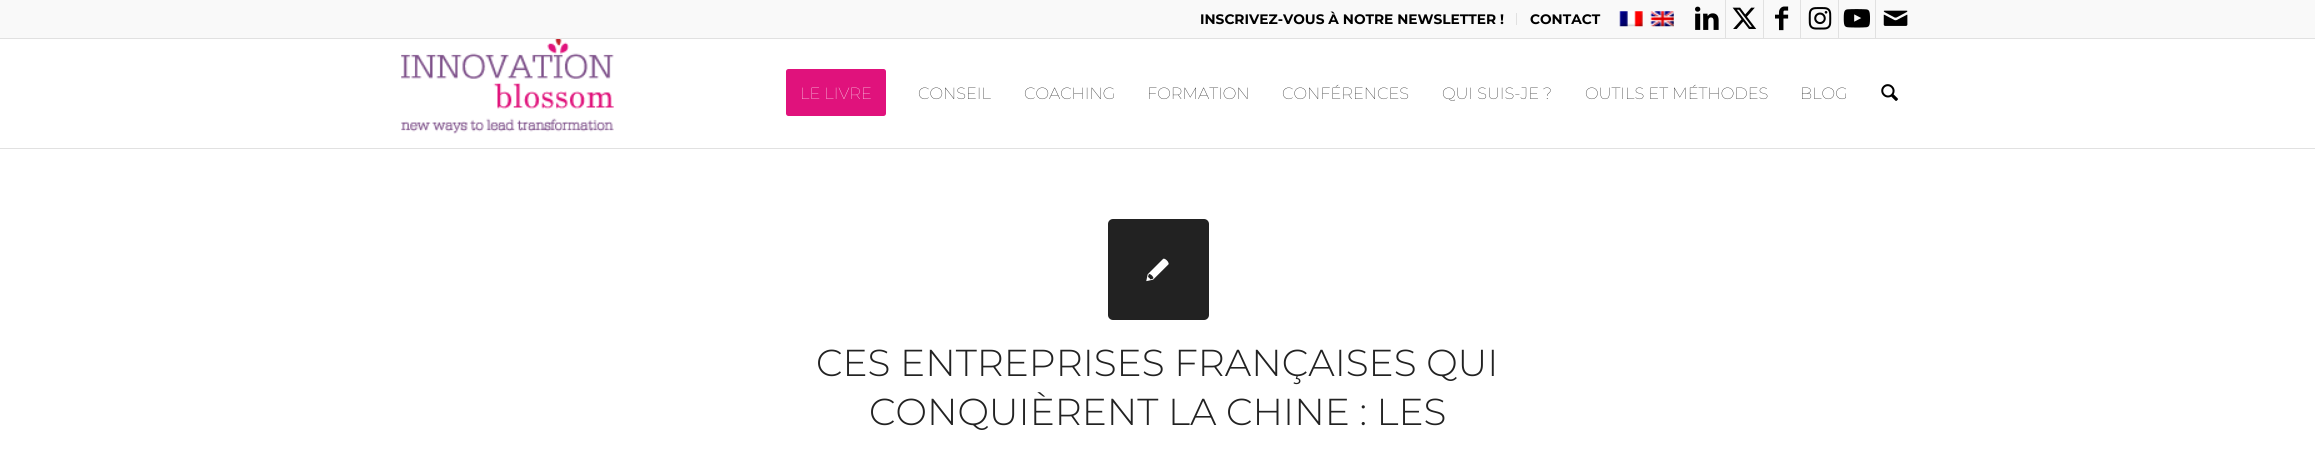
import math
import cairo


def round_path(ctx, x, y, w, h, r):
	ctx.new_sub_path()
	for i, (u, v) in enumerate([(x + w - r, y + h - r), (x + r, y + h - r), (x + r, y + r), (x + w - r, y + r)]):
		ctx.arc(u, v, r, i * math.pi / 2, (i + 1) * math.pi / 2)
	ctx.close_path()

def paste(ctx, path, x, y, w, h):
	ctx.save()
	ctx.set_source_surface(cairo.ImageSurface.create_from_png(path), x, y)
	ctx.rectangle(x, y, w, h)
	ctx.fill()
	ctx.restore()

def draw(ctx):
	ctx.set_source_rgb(1, 1, 1)
	ctx.paint()
	ctx.set_source_rgb(0.973, 0.973, 0.973)
	ctx.rectangle(0, 0, 2315, 38)
	ctx.fill()
	ctx.set_source_rgb(0.882, 0.882, 0.882)
	ctx.rectangle(0, 38, 2315, 1)
	ctx.rectangle(1516, 13, 1, 12)
	ctx.fill()
	ctx.select_font_face('Montserrat', cairo.FONT_SLANT_NORMAL, cairo.FONT_WEIGHT_BOLD)
	ctx.set_font_size(13.75)
	ctx.set_source_rgb(0, 0, 0)
	ctx.move_to(1200, 24)
	ctx.show_text('INSCRIVEZ-VOUS À NOTRE NEWSLETTER !')
	ctx.move_to(1530, 24)
	ctx.show_text('CONTACT')
	paste(ctx, 'media/1.png', 1619, 11, 24, 16)
	paste(ctx, 'media/2.png', 1650, 11, 24, 16)
	ctx.set_source_rgb(0.882, 0.882, 0.882)
	ctx.rectangle(1725, 0, 1, 38)
	ctx.fill()
	paste(ctx, 'media/3.png', 1695, 6, 24, 24)
	ctx.rectangle(1763, 0, 1, 38)
	ctx.fill()
	paste(ctx, 'media/4.png', 1732, 7, 25, 22)
	ctx.rectangle(1800, 0, 1, 38)
	ctx.fill()
	paste(ctx, 'media/5.png', 1775, 6, 14, 25)
	ctx.rectangle(1838, 0, 1, 38)
	ctx.fill()
	paste(ctx, 'media/6.png', 1808, 7, 24, 23)
	ctx.rectangle(1875, 0, 1, 38)
	ctx.fill()
	paste(ctx, 'media/7.png', 1843, 9, 27, 19)
	paste(ctx, 'media/8.png', 1883, 10, 25, 16)
	ctx.rectangle(0, 148, 2315, 1)
	ctx.fill()
	paste(ctx, 'media/9.png', 401, 39, 213, 95)
	ctx.set_source_rgb(0.878, 0.071, 0.486)
	round_path(ctx, 787.5, 70.5, 97, 44, 1)
	ctx.fill_preserve()
	ctx.set_line_width(3)
	ctx.stroke()
	ctx.select_font_face('Montserrat Thin')
	ctx.set_font_size(16.25)
	ctx.set_source_rgb(1, 1, 1)
	ctx.move_to(800, 99)
	ctx.show_text('LE LIVRE')
	ctx.set_source_rgb(0, 0, 0)
	for x, y, s in [
		(918, 99, 'CONSEIL'),
		(1024, 99, 'COACHING'),
		(1147, 99, 'FORMATION'),
		(1282, 99, 'CONFÉRENCES'),
		(1442, 99, 'QUI SUIS-JE ?'),
		(1585, 99, 'OUTILS ET MÉTHODES'),
		(1800, 99, 'BLOG'),
	]:
		ctx.move_to(x, y)
		ctx.show_text(s)
	paste(ctx, 'media/10.png', 1881, 84, 17, 17)
	ctx.set_source_rgb(0.133, 0.133, 0.133)
	round_path(ctx, 1108, 219, 101, 101, 5)
	ctx.fill()
	paste(ctx, 'media/11.png', 1146, 258, 23, 24)
	ctx.select_font_face('Montserrat Light')
	ctx.set_font_size(37.5)
	ctx.move_to(816, 376)
	ctx.show_text('CES ENTREPRISES FRANÇAISES QUI')
	ctx.move_to(869, 425)
	ctx.show_text('CONQUIÈRENT LA CHINE : LES')


surface = cairo.ImageSurface(cairo.FORMAT_RGB24, 2315, 453)
ctx = cairo.Context(surface)
options = cairo.FontOptions()
options.set_hint_metrics(cairo.HINT_METRICS_OFF)
options.set_hint_style(cairo.HINT_STYLE_NONE)
ctx.set_font_options(options)
ctx.set_miter_limit(4)
draw(ctx)
surface.write_to_png('image.png')
